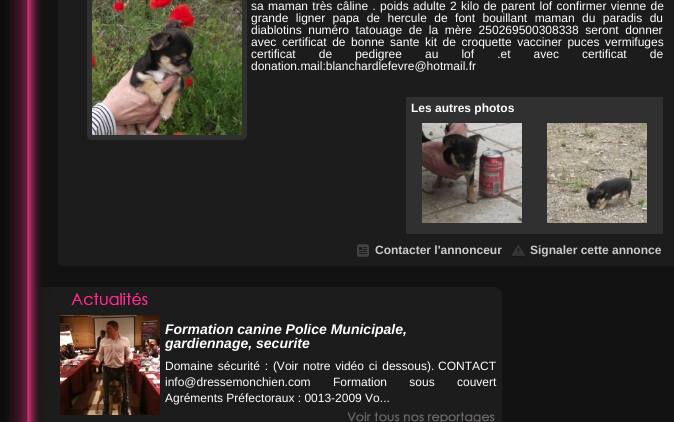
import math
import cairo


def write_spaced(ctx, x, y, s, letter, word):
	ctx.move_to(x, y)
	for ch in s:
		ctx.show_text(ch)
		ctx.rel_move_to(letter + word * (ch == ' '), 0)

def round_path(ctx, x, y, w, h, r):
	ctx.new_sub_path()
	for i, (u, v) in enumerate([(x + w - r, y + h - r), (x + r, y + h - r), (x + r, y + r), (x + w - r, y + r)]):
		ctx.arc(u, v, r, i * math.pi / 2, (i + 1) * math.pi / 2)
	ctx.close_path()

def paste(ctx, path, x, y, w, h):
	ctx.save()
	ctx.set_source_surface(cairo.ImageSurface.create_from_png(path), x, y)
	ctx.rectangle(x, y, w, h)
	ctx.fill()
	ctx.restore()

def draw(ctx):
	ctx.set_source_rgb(0.047, 0.047, 0.047)
	ctx.paint()
	paste(ctx, 'media/1.png', 5, 0, 669, 422)
	ctx.set_source_rgb(0.11, 0.11, 0.11)
	round_path(ctx, 58, -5, 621, 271, 5)
	ctx.fill()
	round_path(ctx, 89.5, -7.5, 155, 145, 2.5)
	ctx.set_source_rgb(0.188, 0.188, 0.188)
	ctx.set_line_width(5)
	ctx.stroke()
	paste(ctx, 'media/2.png', 92, 0, 150, 135)
	ctx.select_font_face('Liberation Sans')
	ctx.set_font_size(12)
	ctx.set_source_rgb(1, 1, 1)
	write_spaced(ctx, 251, 10, 'sa maman très câline . poids adulte 2 kilo de parent lof confirmer vienne de', 0, 1)
	write_spaced(ctx, 251, 22, 'grande ligner papa de hercule de font bouillant maman du paradis du', 0, 4.1)
	write_spaced(ctx, 251, 34, 'diablotins numéro tatouage de la mère 250269500308338 seront donner', 0, 3.25)
	write_spaced(ctx, 251, 46, 'avec certificat de bonne sante kit de croquette vacciner puces vermifuges', 0, 2.25)
	write_spaced(ctx, 251, 58, 'certificat de pedigree au lof .et avec certificat de', 0, 19.75)
	ctx.move_to(251, 70)
	ctx.show_text('donation.mail:blanchardlefevre@hotmail.fr')
	ctx.set_source_rgb(0.188, 0.188, 0.188)
	ctx.rectangle(406, 97, 257, 137)
	ctx.fill()
	ctx.select_font_face('Liberation Sans', cairo.FONT_SLANT_NORMAL, cairo.FONT_WEIGHT_BOLD)
	ctx.set_source_rgb(1, 1, 1)
	ctx.move_to(411, 112)
	ctx.show_text('Les autres photos')
	paste(ctx, 'media/3.png', 422, 123, 100, 100)
	paste(ctx, 'media/4.png', 547, 123, 100, 100)
	paste(ctx, 'media/5.png', 357, 244, 12, 13)
	ctx.set_source_rgb(0.8, 0.8, 0.8)
	ctx.move_to(375, 254)
	ctx.show_text('Contacter l\'annonceur')
	paste(ctx, 'media/6.png', 511, 245, 14, 12)
	ctx.move_to(530, 254)
	ctx.show_text('Signaler cette annonce')
	paste(ctx, 'media/7.png', 37, 284, 465, 138)
	paste(ctx, 'media/8.png', 70, 291, 80, 16)
	paste(ctx, 'media/9.png', 60, 315, 100, 100)
	ctx.select_font_face('Liberation Sans', cairo.FONT_SLANT_ITALIC, cairo.FONT_WEIGHT_BOLD)
	ctx.set_font_size(14)
	ctx.set_source_rgb(1, 1, 1)
	ctx.move_to(165, 334)
	ctx.show_text('Formation canine Police Municipale,')
	ctx.move_to(165, 348)
	ctx.show_text('gardiennage, securite')
	ctx.select_font_face('Liberation Sans')
	ctx.set_font_size(12)
	write_spaced(ctx, 165, 370, 'Domaine sécurité : (Voir notre vidéo ci dessous).', 0, 1.5)
	ctx.move_to(438, 370)
	ctx.show_text('CONTACT')
	ctx.move_to(165, 386)
	ctx.show_text('info@dressemonchien.com')
	write_spaced(ctx, 333, 386, 'Formation sous couvert', 0, 19)
	ctx.move_to(165, 402)
	ctx.show_text('Agréments Préfectoraux : 0013-2009 Vo...')
	paste(ctx, 'media/10.png', 347, 411, 149, 11)


surface = cairo.ImageSurface(cairo.FORMAT_RGB24, 674, 422)
ctx = cairo.Context(surface)
options = cairo.FontOptions()
options.set_hint_metrics(cairo.HINT_METRICS_OFF)
options.set_hint_style(cairo.HINT_STYLE_NONE)
ctx.set_font_options(options)
ctx.set_miter_limit(4)
draw(ctx)
surface.write_to_png('image.png')
